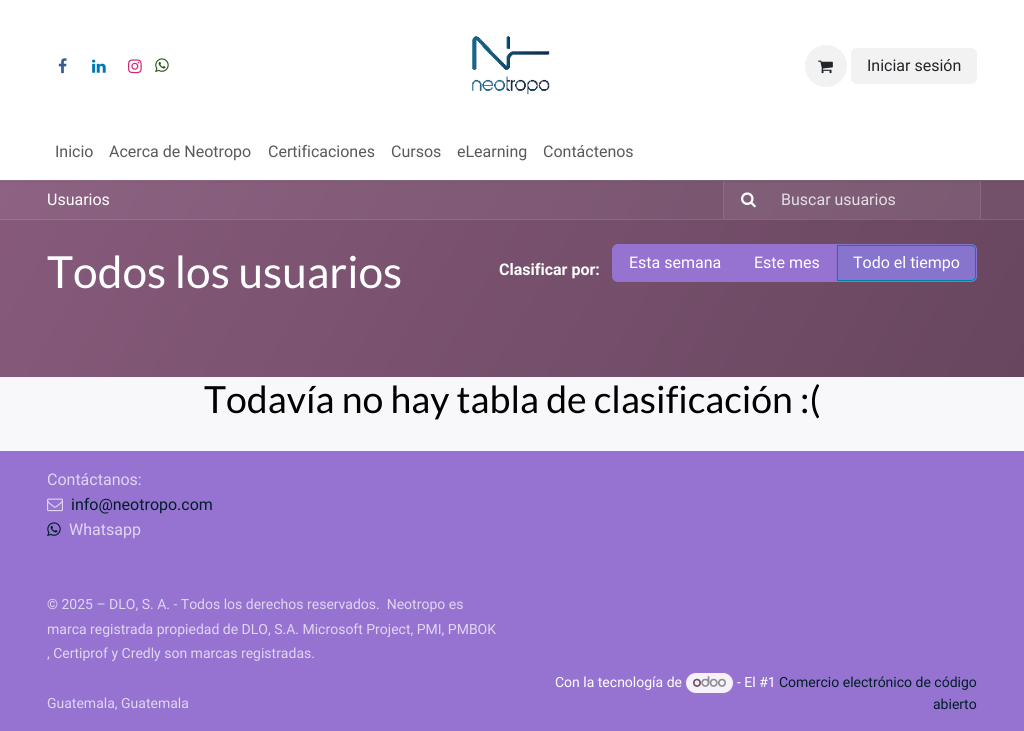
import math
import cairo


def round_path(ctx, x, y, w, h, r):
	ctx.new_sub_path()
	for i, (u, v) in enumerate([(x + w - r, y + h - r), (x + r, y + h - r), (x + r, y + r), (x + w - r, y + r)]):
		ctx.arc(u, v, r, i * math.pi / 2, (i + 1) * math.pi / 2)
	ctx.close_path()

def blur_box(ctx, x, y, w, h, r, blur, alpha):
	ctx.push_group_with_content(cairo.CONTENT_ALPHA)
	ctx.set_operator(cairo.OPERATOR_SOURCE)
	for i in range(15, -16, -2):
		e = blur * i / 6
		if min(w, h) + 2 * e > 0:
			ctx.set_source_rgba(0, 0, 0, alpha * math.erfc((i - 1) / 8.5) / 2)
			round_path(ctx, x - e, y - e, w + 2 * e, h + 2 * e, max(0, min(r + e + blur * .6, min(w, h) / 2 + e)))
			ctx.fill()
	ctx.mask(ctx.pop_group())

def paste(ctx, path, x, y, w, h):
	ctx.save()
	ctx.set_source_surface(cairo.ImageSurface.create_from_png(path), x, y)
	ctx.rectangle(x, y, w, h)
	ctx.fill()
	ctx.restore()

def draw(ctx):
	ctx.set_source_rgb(0.969, 0.969, 0.98)
	ctx.paint()
	gradient = cairo.LinearGradient(85, 32, 939, 525)
	gradient.add_color_stop_rgba(0, 0.553, 0.384, 0.51, 1)
	gradient.add_color_stop_rgba(1, 0.439, 0.31, 0.404, 1)
	ctx.set_source(gradient)
	ctx.rectangle(0, 181, 1024, 38)
	ctx.fill()
	gradient = cairo.LinearGradient(85, 32, 939, 525)
	gradient.add_color_stop_rgba(0, 0.576, 0.416, 0.533, 1)
	gradient.add_color_stop_rgba(1, 0.467, 0.345, 0.435, 1)
	ctx.set_source(gradient)
	ctx.rectangle(724, 181, 256, 38)
	ctx.fill()
	gradient = cairo.LinearGradient(85, 32, 939, 525)
	gradient.add_color_stop_rgba(0, 0.596, 0.447, 0.561, 1)
	gradient.add_color_stop_rgba(1, 0.494, 0.38, 0.463, 1)
	ctx.set_source(gradient)
	ctx.rectangle(0, 180, 1024, 1)
	ctx.fill()
	ctx.set_source_rgb(0.533, 0.42, 0.502)
	ctx.rectangle(980, 181, 1, 38)
	ctx.fill()
	ctx.set_source_rgb(0.553, 0.431, 0.522)
	ctx.rectangle(723, 181, 1, 38)
	ctx.fill()
	ctx.set_source_rgb(0, 0, 0)
	blur_box(ctx, 0, 1, 1024, 180, 0, 1.5, 0.1)
	ctx.set_source_rgb(1, 1, 1)
	ctx.rectangle(0, 0, 1024, 180)
	ctx.fill()
	paste(ctx, 'media/1.png', 58, 58, 9, 16)
	paste(ctx, 'media/2.png', 92, 59, 14, 14)
	paste(ctx, 'media/3.png', 128, 59, 14, 15)
	paste(ctx, 'media/4.png', 155, 58, 14, 15)
	paste(ctx, 'media/5.png', 472, 36, 78, 59)
	ctx.set_source_rgb(0.949, 0.949, 0.949)
	ctx.arc(826, 66, 21, 0, 2 * math.pi)
	ctx.fill()
	paste(ctx, 'media/6.png', 818, 60, 15, 14)
	round_path(ctx, 851, 48, 126, 36, 6)
	ctx.fill()
	ctx.select_font_face('Roboto')
	ctx.set_font_size(16)
	ctx.set_source_rgb(0.129, 0.145, 0.161)
	ctx.move_to(867, 71)
	ctx.show_text('Iniciar sesión')
	ctx.set_source_rgb(0.349, 0.349, 0.349)
	for x, y, s in [
		(55, 157, 'Inicio'),
		(109, 157, 'Acerca de Neotropo'),
		(268, 157, 'Certificaciones'),
		(391, 157, 'Cursos'),
		(457, 157, 'eLearning'),
		(543, 157, 'Contáctenos'),
	]:
		ctx.move_to(x, y)
		ctx.show_text(s)
	gradient = cairo.LinearGradient(85, 32, 939, 525)
	gradient.add_color_stop_rgba(0, 0.529, 0.353, 0.482, 1)
	gradient.add_color_stop_rgba(1, 0.408, 0.275, 0.373, 1)
	ctx.set_source(gradient)
	ctx.rectangle(0, 220, 1024, 157)
	ctx.fill()
	gradient = cairo.LinearGradient(85, 32, 939, 525)
	gradient.add_color_stop_rgba(0, 0.596, 0.447, 0.561, 1)
	gradient.add_color_stop_rgba(1, 0.494, 0.38, 0.463, 1)
	ctx.set_source(gradient)
	ctx.rectangle(0, 219, 1024, 1)
	ctx.fill()
	ctx.set_source_rgb(1, 1, 1)
	ctx.move_to(47, 205)
	ctx.show_text('Usuarios')
	paste(ctx, 'media/7.png', 741, 192, 15, 16)
	ctx.set_source_rgb(0.898, 0.875, 0.89)
	ctx.move_to(781, 205)
	ctx.show_text('Buscar usuarios')
	ctx.select_font_face('Lato')
	ctx.set_font_size(44.25)
	ctx.set_source_rgb(1, 1, 1)
	ctx.move_to(47, 288)
	ctx.show_text('Todos los usuarios')
	ctx.select_font_face('Roboto', cairo.FONT_SLANT_NORMAL, cairo.FONT_WEIGHT_BOLD)
	ctx.set_font_size(16)
	ctx.move_to(499, 275)
	ctx.show_text('Clasificar por:')
	ctx.set_source_rgb(0.588, 0.451, 0.82)
	ctx.new_path()
	ctx.move_to(618, 244.5)
	ctx.line_to(737.5, 244.5)
	ctx.line_to(737.5, 281.5)
	ctx.line_to(618, 281.5)
	ctx.curve_to(615, 281.5, 612.5, 279, 612.5, 276)
	ctx.line_to(612.5, 250)
	ctx.curve_to(612.5, 247, 615, 244.5, 618, 244.5)
	ctx.close_path()
	ctx.fill_preserve()
	ctx.set_line_width(1)
	ctx.stroke()
	ctx.select_font_face('Roboto')
	ctx.set_source_rgb(1, 1, 1)
	ctx.move_to(629, 268)
	ctx.show_text('Esta semana')
	ctx.set_source_rgb(0.588, 0.451, 0.82)
	ctx.rectangle(738, 244, 98, 38)
	ctx.fill()
	ctx.set_source_rgb(1, 1, 1)
	ctx.move_to(754, 268)
	ctx.show_text('Este mes')
	ctx.set_source_rgb(0.529, 0.455, 0.804)
	ctx.new_path()
	ctx.move_to(836, 244)
	ctx.line_to(971, 244)
	ctx.curve_to(974.5, 244, 977, 246.5, 977, 250)
	ctx.line_to(977, 276)
	ctx.curve_to(977, 279.5, 974.5, 282, 971, 282)
	ctx.line_to(836, 282)
	ctx.close_path()
	ctx.fill()
	ctx.new_path()
	ctx.move_to(837.5, 245.5)
	ctx.line_to(971, 245.5)
	ctx.curve_to(973.5, 245.5, 975.5, 247.5, 975.5, 250)
	ctx.line_to(975.5, 276)
	ctx.curve_to(975.5, 278.5, 973.5, 280.5, 971, 280.5)
	ctx.line_to(837.5, 280.5)
	ctx.close_path()
	ctx.set_source_rgb(0, 0.502, 0.655)
	ctx.stroke()
	ctx.set_source_rgb(1, 1, 1)
	ctx.move_to(853, 268)
	ctx.show_text('Todo el tiempo')
	ctx.select_font_face('Lato')
	ctx.set_font_size(37.4)
	ctx.set_source_rgb(0, 0, 0)
	ctx.move_to(204, 413)
	ctx.show_text('Todavía no hay tabla de clasificación :(')
	ctx.set_source_rgb(0.588, 0.451, 0.82)
	ctx.rectangle(0, 451, 1024, 280)
	ctx.fill()
	ctx.select_font_face('Roboto')
	ctx.set_font_size(16)
	ctx.set_source_rgb(0.878, 0.835, 0.945)
	ctx.move_to(47, 485)
	ctx.show_text('Contáctanos:')
	paste(ctx, 'media/8.png', 47, 498, 16, 14)
	ctx.set_source_rgb(0, 0.118, 0.157)
	ctx.move_to(71, 510)
	ctx.show_text('info@neotropo.com')
	paste(ctx, 'media/9.png', 47, 522, 14, 15)
	ctx.set_source_rgb(0.878, 0.835, 0.945)
	ctx.move_to(69, 535)
	ctx.show_text('Whatsapp')
	ctx.set_font_size(14)
	for x, y, s in [
		(47, 609, '© 2025 – DLO, S. A. - Todos los derechos reservados.  Neotropo es'),
		(47, 634, 'marca registrada propiedad de DLO, S.A. Microsoft Project, PMI, PMBOK'),
		(47, 658, ', Certiprof y Credly son marcas registradas.'),
		(47, 708, 'Guatemala, Guatemala'),
	]:
		ctx.move_to(x, y)
		ctx.show_text(s)
	ctx.set_source_rgb(1, 1, 1)
	ctx.move_to(555, 687)
	ctx.show_text('Con la tecnología de')
	ctx.set_source_rgb(0.961, 0.945, 0.98)
	round_path(ctx, 685.5, 672.5, 48, 21, 10.5)
	ctx.fill_preserve()
	ctx.set_source_rgb(0.588, 0.451, 0.82)
	ctx.stroke()
	paste(ctx, 'media/10.png', 693, 676, 33, 11)
	ctx.set_source_rgb(1, 1, 1)
	ctx.move_to(737, 687)
	ctx.show_text('- El #1')
	ctx.set_source_rgb(0, 0.118, 0.157)
	ctx.move_to(779, 687)
	ctx.show_text('Comercio electrónico de código')
	ctx.move_to(933, 709)
	ctx.show_text('abierto')


surface = cairo.ImageSurface(cairo.FORMAT_RGB24, 1024, 731)
ctx = cairo.Context(surface)
options = cairo.FontOptions()
options.set_hint_metrics(cairo.HINT_METRICS_OFF)
options.set_hint_style(cairo.HINT_STYLE_NONE)
ctx.set_font_options(options)
ctx.set_miter_limit(4)
draw(ctx)
surface.write_to_png('image.png')
